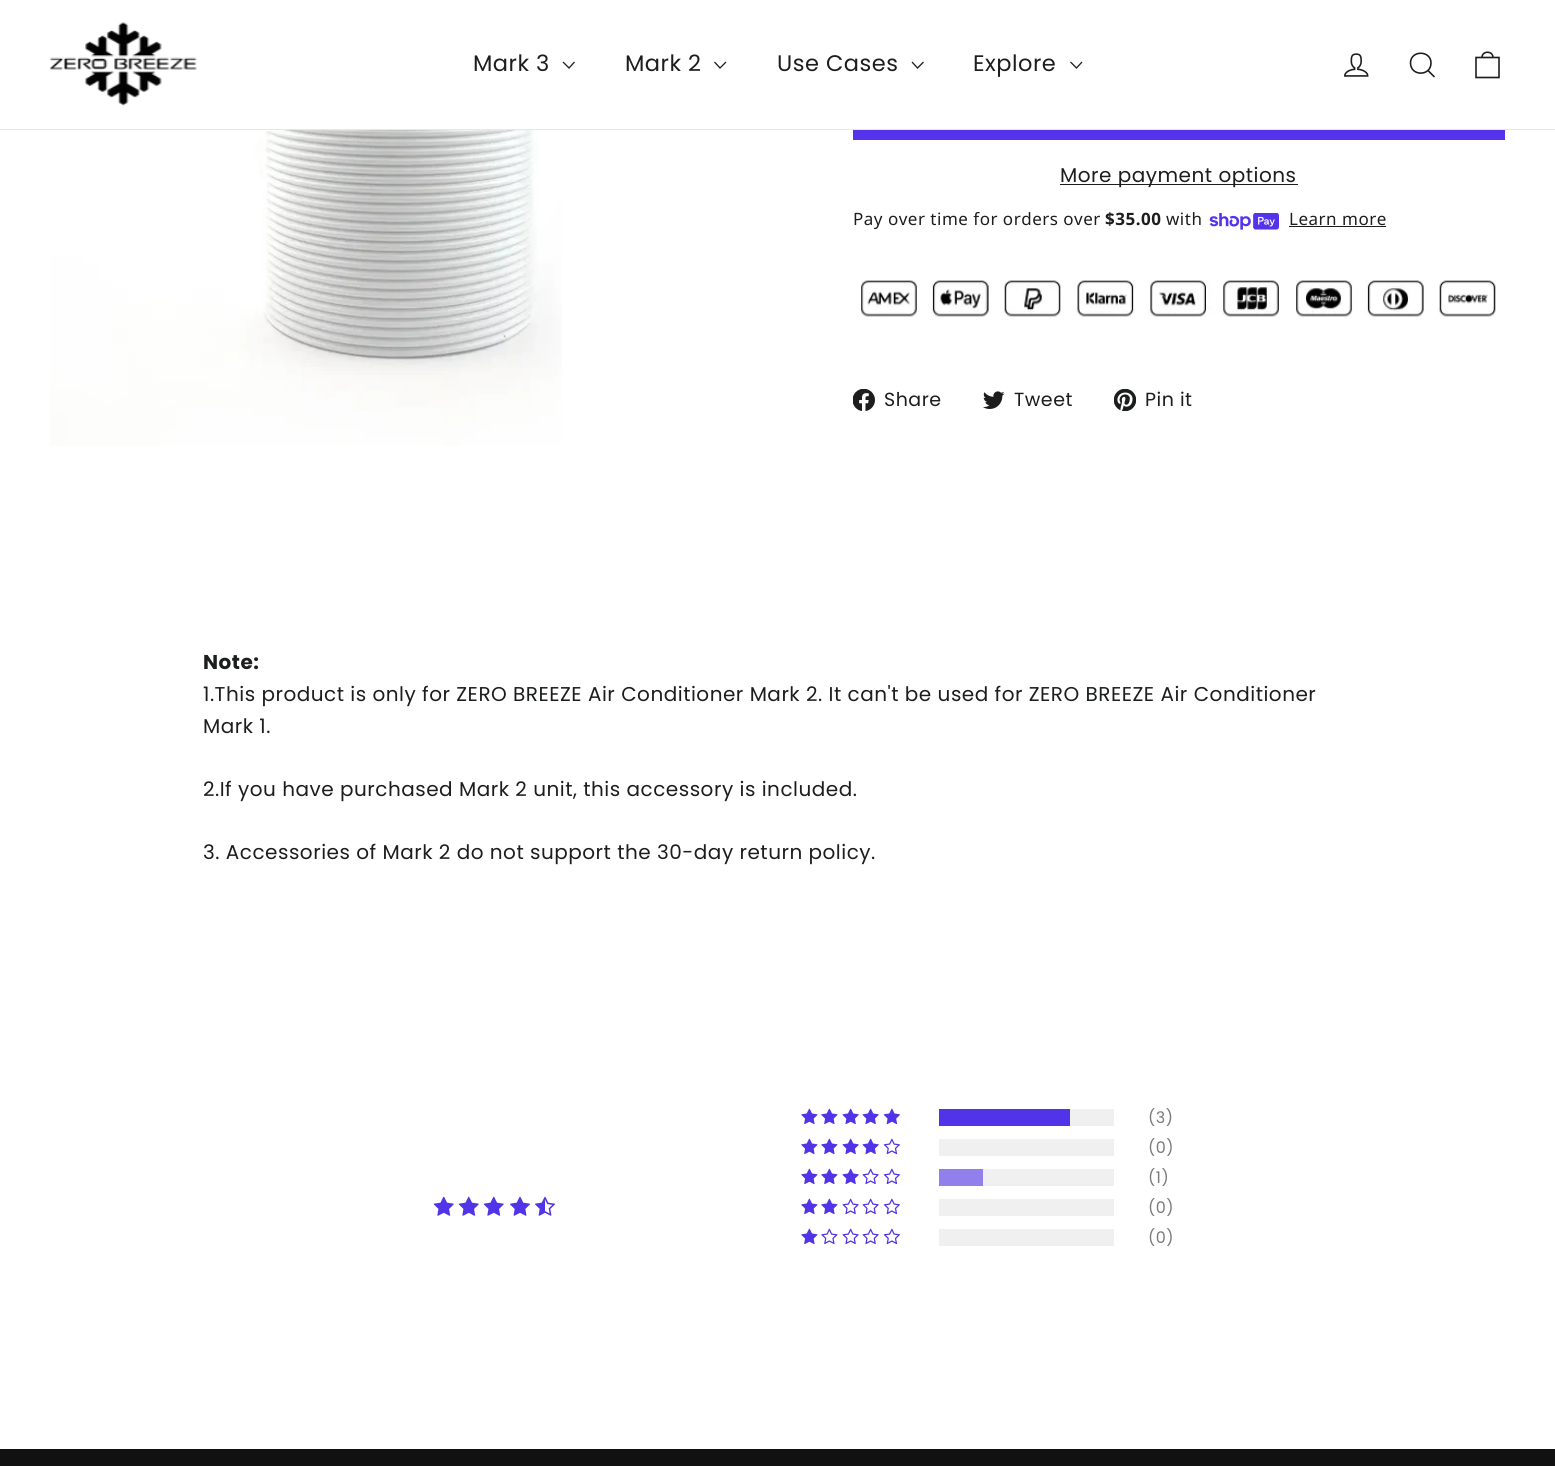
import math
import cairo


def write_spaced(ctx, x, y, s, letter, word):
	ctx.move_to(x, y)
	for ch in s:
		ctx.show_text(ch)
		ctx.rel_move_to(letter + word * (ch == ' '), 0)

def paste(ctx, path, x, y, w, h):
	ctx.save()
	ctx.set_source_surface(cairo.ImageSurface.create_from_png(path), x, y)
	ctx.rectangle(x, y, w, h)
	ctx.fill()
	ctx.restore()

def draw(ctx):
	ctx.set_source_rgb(1, 1, 1)
	ctx.paint()
	ctx.set_source_rgb(0.91, 0.91, 0.882)
	ctx.rectangle(0, 129, 1555, 1)
	ctx.fill()
	paste(ctx, 'media/1.png', 50, 22, 147, 84)
	ctx.select_font_face('Poppins')
	ctx.set_font_size(22.5)
	ctx.set_source_rgb(0.11, 0.114, 0.114)
	write_spaced(ctx, 473, 71, 'Mark 3', 0.5, 0)
	ctx.new_path()
	ctx.move_to(563, 62)
	ctx.line_to(569, 68)
	ctx.line_to(574.5, 62)
	ctx.set_line_width(1.3)
	ctx.stroke()
	write_spaced(ctx, 625, 71, 'Mark 2', 0.5, 0)
	ctx.new_path()
	ctx.move_to(714.5, 62)
	ctx.line_to(720, 68)
	ctx.line_to(726, 62)
	ctx.stroke()
	write_spaced(ctx, 777, 71, 'Use Cases', 0.5, 0)
	ctx.new_path()
	ctx.move_to(912, 62)
	ctx.line_to(917.5, 68)
	ctx.line_to(923.5, 62)
	ctx.stroke()
	write_spaced(ctx, 973, 71, 'Explore', 0.5, 0)
	ctx.new_path()
	ctx.move_to(1070.5, 62)
	ctx.line_to(1076.5, 68)
	ctx.line_to(1082, 62)
	ctx.stroke()
	paste(ctx, 'media/2.png', 1344, 53, 25, 24)
	ctx.new_path()
	ctx.move_to(1431, 63)
	ctx.curve_to(1431, 76.5, 1410.5, 76.5, 1410.5, 63)
	ctx.curve_to(1410.5, 50, 1431, 50, 1431, 63)
	ctx.close_path()
	ctx.move_to(1434.5, 77)
	ctx.line_to(1428, 70.5)
	ctx.set_line_width(1.6)
	ctx.stroke()
	ctx.new_path()
	ctx.move_to(1476, 57.5)
	ctx.line_to(1499, 57.5)
	ctx.line_to(1499, 77.5)
	ctx.line_to(1476, 77.5)
	ctx.close_path()
	ctx.move_to(1482, 57.5)
	ctx.curve_to(1482, 50.5, 1493, 50.5, 1493, 57.5)
	ctx.stroke()
	paste(ctx, 'media/3.png', 50, 130, 512, 316)
	ctx.set_source_rgb(0.329, 0.2, 0.922)
	ctx.rectangle(853, 130, 652, 10)
	ctx.fill()
	ctx.set_source_rgb(0.11, 0.114, 0.114)
	ctx.rectangle(1060, 184, 238, 1)
	ctx.fill()
	ctx.set_font_size(20)
	write_spaced(ctx, 1060, 182, 'More payment options', 0.5, 0)
	ctx.select_font_face('Noto Sans')
	ctx.set_font_size(17)
	write_spaced(ctx, 853, 225, 'Pay over time for orders over', 0.5, 0)
	ctx.select_font_face('Noto Sans', cairo.FONT_SLANT_NORMAL, cairo.FONT_WEIGHT_BOLD)
	write_spaced(ctx, 1105, 225, '$35.00', 0.5, 0)
	ctx.select_font_face('Noto Sans')
	write_spaced(ctx, 1166, 225, 'with', 0.5, 0)
	paste(ctx, 'media/4.png', 1209, 213, 70, 17)
	write_spaced(ctx, 1289, 225, 'Learn more', 0.5, 0)
	ctx.rectangle(1289, 226, 97, 1)
	ctx.fill()
	paste(ctx, 'media/5.png', 861, 280, 635, 37)
	paste(ctx, 'media/6.png', 853, 389, 22, 22)
	ctx.select_font_face('Poppins')
	ctx.set_font_size(19)
	write_spaced(ctx, 884, 406, 'Share', 0.5, 0)
	paste(ctx, 'media/7.png', 983, 391, 22, 18)
	write_spaced(ctx, 1014, 406, 'Tweet', 0.5, 0)
	paste(ctx, 'media/8.png', 1114, 389, 22, 22)
	write_spaced(ctx, 1145, 406, 'Pin it', 0.5, 0)
	ctx.select_font_face('Poppins', cairo.FONT_SLANT_NORMAL, cairo.FONT_WEIGHT_BOLD)
	ctx.set_font_size(20)
	write_spaced(ctx, 203, 669, 'Note:', 0.5, 0)
	ctx.select_font_face('Poppins')
	for x, y, s in [
		(203, 701, '1.This product is only for ZERO BREEZE Air Conditioner Mark 2. It can\'t be used for ZERO BREEZE Air Conditioner'),
		(203, 733, 'Mark 1.'),
		(203, 796, '2.If you have purchased Mark 2 unit, this accessory is included.'),
		(203, 859, '3. Accessories of Mark 2 do not support the 30-day return policy.'),
	]:
		write_spaced(ctx, x, y, s, 0.5, 0)
	paste(ctx, 'media/9.png', 433, 1196, 21, 20)
	paste(ctx, 'media/9.png', 458, 1196, 21, 20)
	paste(ctx, 'media/9.png', 483, 1196, 21, 20)
	paste(ctx, 'media/10.png', 510, 1196, 20, 20)
	paste(ctx, 'media/11.png', 535, 1196, 20, 20)
	paste(ctx, 'media/12.png', 801, 1108, 17, 17)
	paste(ctx, 'media/12.png', 821, 1108, 17, 17)
	paste(ctx, 'media/13.png', 842, 1108, 17, 17)
	paste(ctx, 'media/13.png', 862, 1108, 17, 17)
	paste(ctx, 'media/14.png', 883, 1108, 17, 17)
	ctx.set_source_rgb(0.941, 0.941, 0.941)
	ctx.rectangle(1070, 1109, 44, 17)
	ctx.fill()
	ctx.set_source_rgb(0.318, 0.204, 0.906)
	ctx.rectangle(939, 1109, 131, 17)
	ctx.fill()
	ctx.set_font_size(16)
	ctx.set_source_rgb(0.482, 0.482, 0.482)
	write_spaced(ctx, 1148, 1123, '(3)', 0.5, 0)
	paste(ctx, 'media/12.png', 801, 1138, 17, 17)
	paste(ctx, 'media/12.png', 821, 1138, 17, 17)
	paste(ctx, 'media/13.png', 842, 1138, 17, 17)
	paste(ctx, 'media/13.png', 862, 1138, 17, 17)
	paste(ctx, 'media/15.png', 883, 1138, 17, 17)
	ctx.set_source_rgb(0.941, 0.941, 0.941)
	ctx.rectangle(939, 1139, 175, 17)
	ctx.fill()
	ctx.set_source_rgb(0.482, 0.482, 0.482)
	write_spaced(ctx, 1148, 1153, '(0)', 0.5, 0)
	paste(ctx, 'media/12.png', 801, 1168, 17, 17)
	paste(ctx, 'media/12.png', 821, 1168, 17, 17)
	paste(ctx, 'media/13.png', 842, 1168, 17, 17)
	paste(ctx, 'media/16.png', 862, 1168, 17, 17)
	paste(ctx, 'media/15.png', 883, 1168, 17, 17)
	ctx.set_source_rgb(0.941, 0.941, 0.941)
	ctx.rectangle(983, 1169, 131, 17)
	ctx.fill()
	ctx.set_source_rgb(0.569, 0.498, 0.922)
	ctx.rectangle(939, 1169, 44, 17)
	ctx.fill()
	ctx.set_source_rgb(0.482, 0.482, 0.482)
	write_spaced(ctx, 1148, 1183, '(1)', 0.5, 0)
	paste(ctx, 'media/12.png', 801, 1198, 17, 17)
	paste(ctx, 'media/12.png', 821, 1198, 17, 17)
	paste(ctx, 'media/16.png', 842, 1198, 17, 17)
	paste(ctx, 'media/16.png', 862, 1198, 17, 17)
	paste(ctx, 'media/15.png', 883, 1198, 17, 17)
	ctx.set_source_rgb(0.941, 0.941, 0.941)
	ctx.rectangle(939, 1199, 175, 17)
	ctx.fill()
	ctx.set_source_rgb(0.482, 0.482, 0.482)
	write_spaced(ctx, 1148, 1213, '(0)', 0.5, 0)
	paste(ctx, 'media/12.png', 801, 1228, 17, 17)
	paste(ctx, 'media/17.png', 821, 1228, 17, 17)
	paste(ctx, 'media/16.png', 842, 1228, 17, 17)
	paste(ctx, 'media/16.png', 862, 1228, 17, 17)
	paste(ctx, 'media/15.png', 883, 1228, 17, 17)
	ctx.set_source_rgb(0.941, 0.941, 0.941)
	ctx.rectangle(939, 1229, 175, 17)
	ctx.fill()
	ctx.set_source_rgb(0.482, 0.482, 0.482)
	write_spaced(ctx, 1148, 1243, '(0)', 0.5, 0)
	ctx.set_source_rgb(0.067, 0.067, 0.067)
	ctx.rectangle(0, 1449, 1555, 17)
	ctx.fill()


surface = cairo.ImageSurface(cairo.FORMAT_RGB24, 1555, 1466)
ctx = cairo.Context(surface)
options = cairo.FontOptions()
options.set_hint_metrics(cairo.HINT_METRICS_OFF)
options.set_hint_style(cairo.HINT_STYLE_NONE)
ctx.set_font_options(options)
ctx.set_miter_limit(4)
draw(ctx)
surface.write_to_png('image.png')
